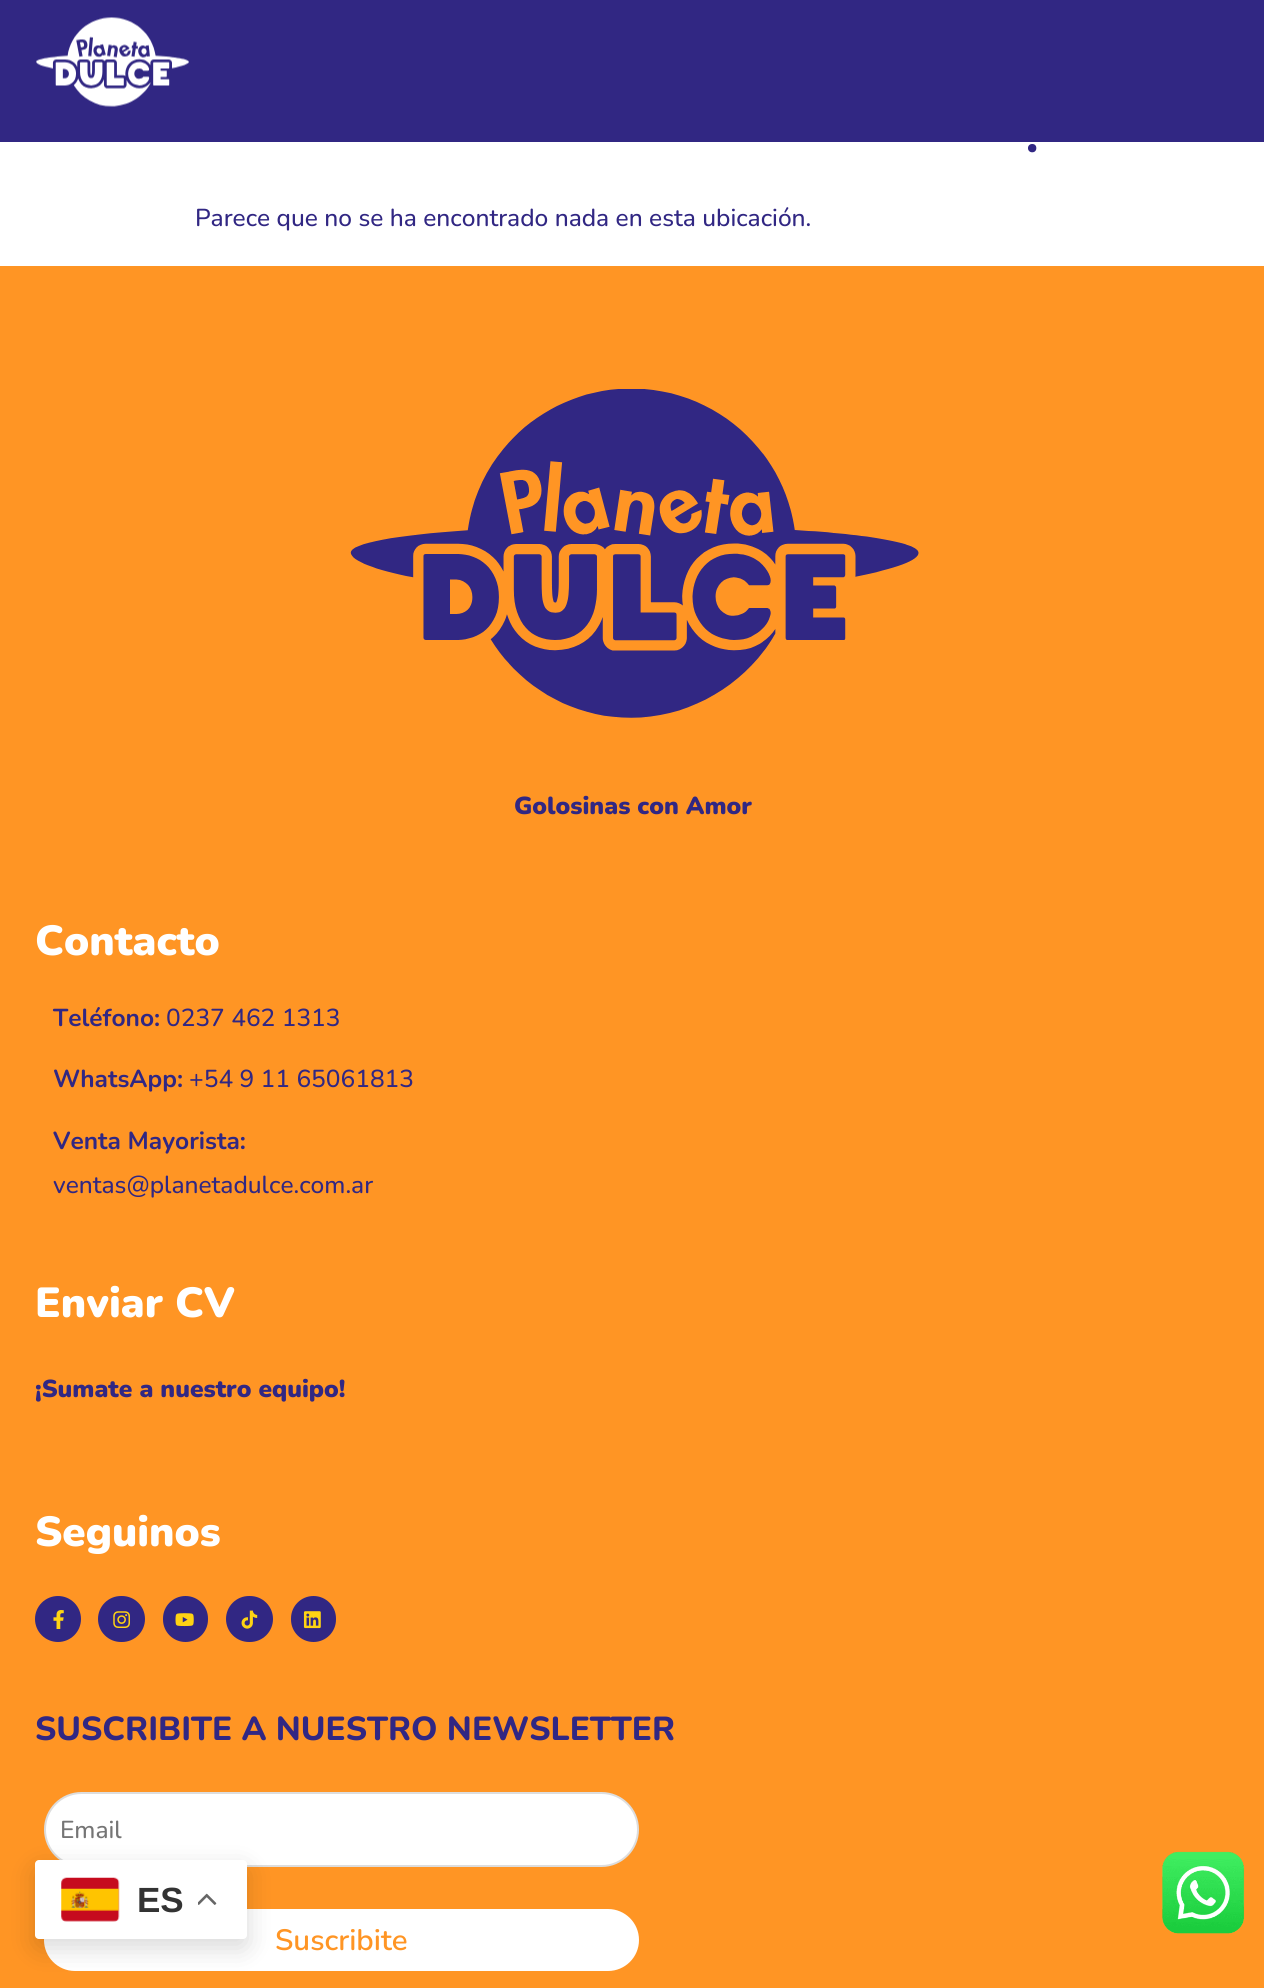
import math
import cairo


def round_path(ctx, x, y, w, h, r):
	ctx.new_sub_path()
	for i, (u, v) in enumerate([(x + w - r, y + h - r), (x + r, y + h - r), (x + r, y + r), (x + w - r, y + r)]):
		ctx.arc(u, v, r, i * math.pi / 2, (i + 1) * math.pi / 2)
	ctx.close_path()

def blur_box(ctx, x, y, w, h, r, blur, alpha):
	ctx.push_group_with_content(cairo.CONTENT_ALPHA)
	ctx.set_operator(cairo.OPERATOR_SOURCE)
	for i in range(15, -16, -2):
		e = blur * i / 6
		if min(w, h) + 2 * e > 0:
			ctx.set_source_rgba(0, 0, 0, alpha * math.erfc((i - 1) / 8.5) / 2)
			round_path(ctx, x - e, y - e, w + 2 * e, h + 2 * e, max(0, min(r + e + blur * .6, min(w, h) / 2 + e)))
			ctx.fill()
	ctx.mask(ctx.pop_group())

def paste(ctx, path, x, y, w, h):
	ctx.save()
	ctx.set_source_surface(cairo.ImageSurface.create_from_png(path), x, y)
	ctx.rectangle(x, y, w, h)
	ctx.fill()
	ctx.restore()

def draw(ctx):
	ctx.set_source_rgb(1, 1, 1)
	ctx.paint()
	ctx.set_source_rgb(0.192, 0.153, 0.514)
	ctx.rectangle(0, 0, 1264, 142)
	ctx.fill()
	paste(ctx, 'media/1.png', 36, 17, 153, 90)
	ctx.set_source_rgb(1, 0.584, 0.141)
	ctx.rectangle(0, 266, 1264, 1722)
	ctx.fill()
	paste(ctx, 'media/2.png', 1162, 1851, 83, 83)
	ctx.select_font_face('Nunito Medium')
	ctx.set_font_size(70)
	ctx.set_source_rgb(0.192, 0.153, 0.514)
	ctx.move_to(1024, 152)
	ctx.show_text('.')
	ctx.set_font_size(24.5)
	ctx.move_to(195, 226)
	ctx.show_text('Parece que no se ha encontrado nada en esta ubicación.')
	paste(ctx, 'media/3.png', 350, 389, 569, 329)
	ctx.select_font_face('Nunito Black')
	ctx.move_to(514, 814)
	ctx.show_text('Golosinas con Amor')
	ctx.set_font_size(42)
	ctx.set_source_rgb(1, 1, 1)
	ctx.move_to(35, 955)
	ctx.show_text('Contacto')
	ctx.select_font_face('Nunito', cairo.FONT_SLANT_NORMAL, cairo.FONT_WEIGHT_BOLD)
	ctx.set_font_size(24.5)
	ctx.set_source_rgb(0.192, 0.153, 0.514)
	ctx.move_to(53, 1026)
	ctx.show_text('Teléfono:')
	ctx.select_font_face('Nunito Medium')
	ctx.move_to(166, 1026)
	ctx.show_text('0237 462 1313')
	ctx.select_font_face('Nunito', cairo.FONT_SLANT_NORMAL, cairo.FONT_WEIGHT_BOLD)
	ctx.move_to(53, 1087)
	ctx.show_text('WhatsApp:')
	ctx.select_font_face('Nunito Medium')
	ctx.move_to(189, 1087)
	ctx.show_text('+54 9 11 65061813')
	ctx.select_font_face('Nunito', cairo.FONT_SLANT_NORMAL, cairo.FONT_WEIGHT_BOLD)
	ctx.move_to(53, 1149)
	ctx.show_text('Venta Mayorista:')
	ctx.select_font_face('Nunito Medium')
	ctx.move_to(53, 1193)
	ctx.show_text('ventas@planetadulce.com.ar')
	ctx.select_font_face('Nunito Black')
	ctx.set_font_size(42)
	ctx.set_source_rgb(1, 1, 1)
	ctx.move_to(35, 1317)
	ctx.show_text('Enviar CV')
	ctx.set_font_size(24.5)
	ctx.set_source_rgb(0.192, 0.153, 0.514)
	ctx.move_to(35, 1397)
	ctx.show_text('¡Sumate a nuestro equipo!')
	ctx.set_font_size(42)
	ctx.set_source_rgb(1, 1, 1)
	ctx.move_to(35, 1546)
	ctx.show_text('Seguinos')
	ctx.set_source_rgb(0.192, 0.153, 0.514)
	ctx.new_path()
	ctx.arc(58, 1619, 23, 0, 2 * math.pi)
	ctx.fill()
	paste(ctx, 'media/4.png', 53, 1610, 11, 19)
	round_path(ctx, 98, 1596, 47, 46, 23)
	ctx.fill()
	paste(ctx, 'media/5.png', 113, 1611, 17, 17)
	round_path(ctx, 163, 1596, 45, 46, 22.5)
	ctx.fill()
	paste(ctx, 'media/6.png', 175, 1613, 19, 14)
	round_path(ctx, 226, 1596, 47, 46, 23)
	ctx.fill()
	paste(ctx, 'media/7.png', 241, 1610, 17, 19)
	round_path(ctx, 291, 1596, 45, 46, 22.5)
	ctx.fill()
	paste(ctx, 'media/8.png', 303, 1611, 18, 18)
	ctx.select_font_face('Nunito ExtraBold')
	ctx.set_font_size(33.25)
	ctx.move_to(35, 1740)
	ctx.show_text('SUSCRIBITE A NUESTRO NEWSLETTER')
	ctx.set_source_rgb(1, 1, 1)
	round_path(ctx, 45, 1793, 593, 73, 36.5)
	ctx.fill_preserve()
	ctx.set_source_rgb(0.867, 0.867, 0.867)
	ctx.stroke()
	ctx.select_font_face('Nunito Medium')
	ctx.set_font_size(24.5)
	ctx.set_source_rgb(0.459, 0.459, 0.459)
	ctx.move_to(60, 1838)
	ctx.show_text('Email')
	ctx.set_source_rgb(1, 1, 1)
	round_path(ctx, 44, 1909, 595, 62, 31)
	ctx.fill()
	ctx.select_font_face('Nunito SemiBold')
	ctx.set_font_size(29.5)
	ctx.set_source_rgb(1, 0.584, 0.141)
	ctx.move_to(275, 1950)
	ctx.show_text('Suscribite')
	ctx.set_source_rgb(0, 0, 0)
	blur_box(ctx, 35, 1869, 212, 79, 4, 13, 0.15)
	ctx.set_source_rgb(1, 1, 1)
	round_path(ctx, 35, 1860, 212, 79, 4)
	ctx.fill()
	paste(ctx, 'media/9.png', 61, 1877, 59, 45)
	ctx.select_font_face('Liberation Sans', cairo.FONT_SLANT_NORMAL, cairo.FONT_WEIGHT_BOLD)
	ctx.set_font_size(35)
	ctx.set_source_rgb(0.2, 0.2, 0.2)
	ctx.move_to(137, 1912)
	ctx.show_text('ES')
	paste(ctx, 'media/10.png', 198, 1893, 19, 12)


surface = cairo.ImageSurface(cairo.FORMAT_RGB24, 1264, 1988)
ctx = cairo.Context(surface)
options = cairo.FontOptions()
options.set_hint_metrics(cairo.HINT_METRICS_OFF)
options.set_hint_style(cairo.HINT_STYLE_NONE)
ctx.set_font_options(options)
ctx.set_miter_limit(4)
draw(ctx)
surface.write_to_png('image.png')
